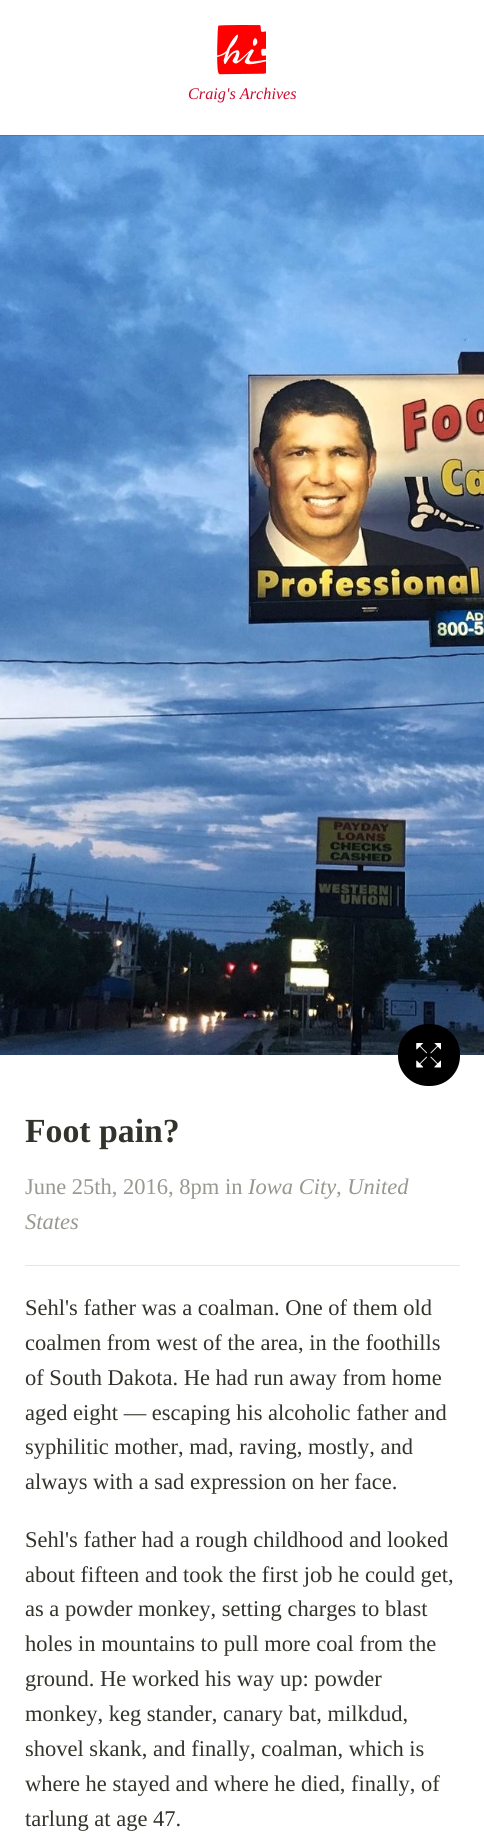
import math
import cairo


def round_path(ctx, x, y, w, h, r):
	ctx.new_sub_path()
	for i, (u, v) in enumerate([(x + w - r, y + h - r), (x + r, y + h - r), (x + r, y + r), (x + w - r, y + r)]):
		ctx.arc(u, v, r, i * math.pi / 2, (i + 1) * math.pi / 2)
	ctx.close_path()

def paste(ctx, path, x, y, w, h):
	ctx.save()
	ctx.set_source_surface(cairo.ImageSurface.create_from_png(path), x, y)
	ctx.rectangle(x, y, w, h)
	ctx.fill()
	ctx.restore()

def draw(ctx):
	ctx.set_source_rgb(1, 1, 1)
	ctx.paint()
	paste(ctx, 'media/1.png', 217, 25, 49, 50)
	ctx.select_font_face('Liberation Serif', cairo.FONT_SLANT_ITALIC)
	ctx.set_font_size(16.25)
	ctx.set_source_rgb(0.8, 0.035, 0.184)
	ctx.move_to(188, 99)
	ctx.show_text('Craig\'s Archives')
	paste(ctx, 'media/2.png', 0, 135, 484, 920)
	ctx.set_source_rgb(0, 0, 0)
	round_path(ctx, 398, 1024, 62, 62, 30)
	ctx.fill()
	paste(ctx, 'media/3.png', 416, 1043, 25, 25)
	ctx.select_font_face('Liberation Serif', cairo.FONT_SLANT_NORMAL, cairo.FONT_WEIGHT_BOLD)
	ctx.set_font_size(33.75)
	ctx.set_source_rgb(0.2, 0.2, 0.169)
	ctx.move_to(25, 1142)
	ctx.show_text('Foot pain?')
	ctx.select_font_face('Liberation Serif')
	ctx.set_font_size(22.5)
	ctx.set_source_rgb(0.596, 0.596, 0.565)
	ctx.move_to(25, 1194)
	ctx.show_text('June 25th, 2016, 8pm in')
	ctx.select_font_face('Liberation Serif', cairo.FONT_SLANT_ITALIC)
	ctx.move_to(248, 1194)
	ctx.show_text('Iowa City, United')
	ctx.move_to(25, 1229)
	ctx.show_text('States')
	ctx.set_source_rgb(0.902, 0.902, 0.902)
	ctx.rectangle(25, 1265, 435, 1)
	ctx.fill()
	ctx.select_font_face('Liberation Serif')
	ctx.set_source_rgb(0.2, 0.2, 0.169)
	for x, y, s in [
		(25, 1315, 'Sehl\'s father was a coalman. One of them old'),
		(25, 1350, 'coalmen from west of the area, in the foothills'),
		(25, 1385, 'of South Dakota. He had run away from home'),
		(25, 1420, 'aged eight — escaping his alcoholic father and'),
		(25, 1454, 'syphilitic mother, mad, raving, mostly, and'),
		(25, 1489, 'always with a sad expression on her face.'),
		(25, 1547, 'Sehl\'s father had a rough childhood and looked'),
		(25, 1582, 'about fifteen and took the first job he could get,'),
		(25, 1616, 'as a powder monkey, setting charges to blast'),
		(25, 1651, 'holes in mountains to pull more coal from the'),
		(25, 1686, 'ground. He worked his way up: powder'),
		(25, 1721, 'monkey, keg stander, canary bat, milkdud,'),
		(25, 1756, 'shovel skank, and finally, coalman, which is'),
		(25, 1791, 'where he stayed and where he died, finally, of'),
		(25, 1826, 'tarlung at age 47.'),
	]:
		ctx.move_to(x, y)
		ctx.show_text(s)


surface = cairo.ImageSurface(cairo.FORMAT_RGB24, 484, 1841)
ctx = cairo.Context(surface)
options = cairo.FontOptions()
options.set_hint_metrics(cairo.HINT_METRICS_OFF)
options.set_hint_style(cairo.HINT_STYLE_NONE)
ctx.set_font_options(options)
ctx.set_miter_limit(4)
draw(ctx)
surface.write_to_png('image.png')
